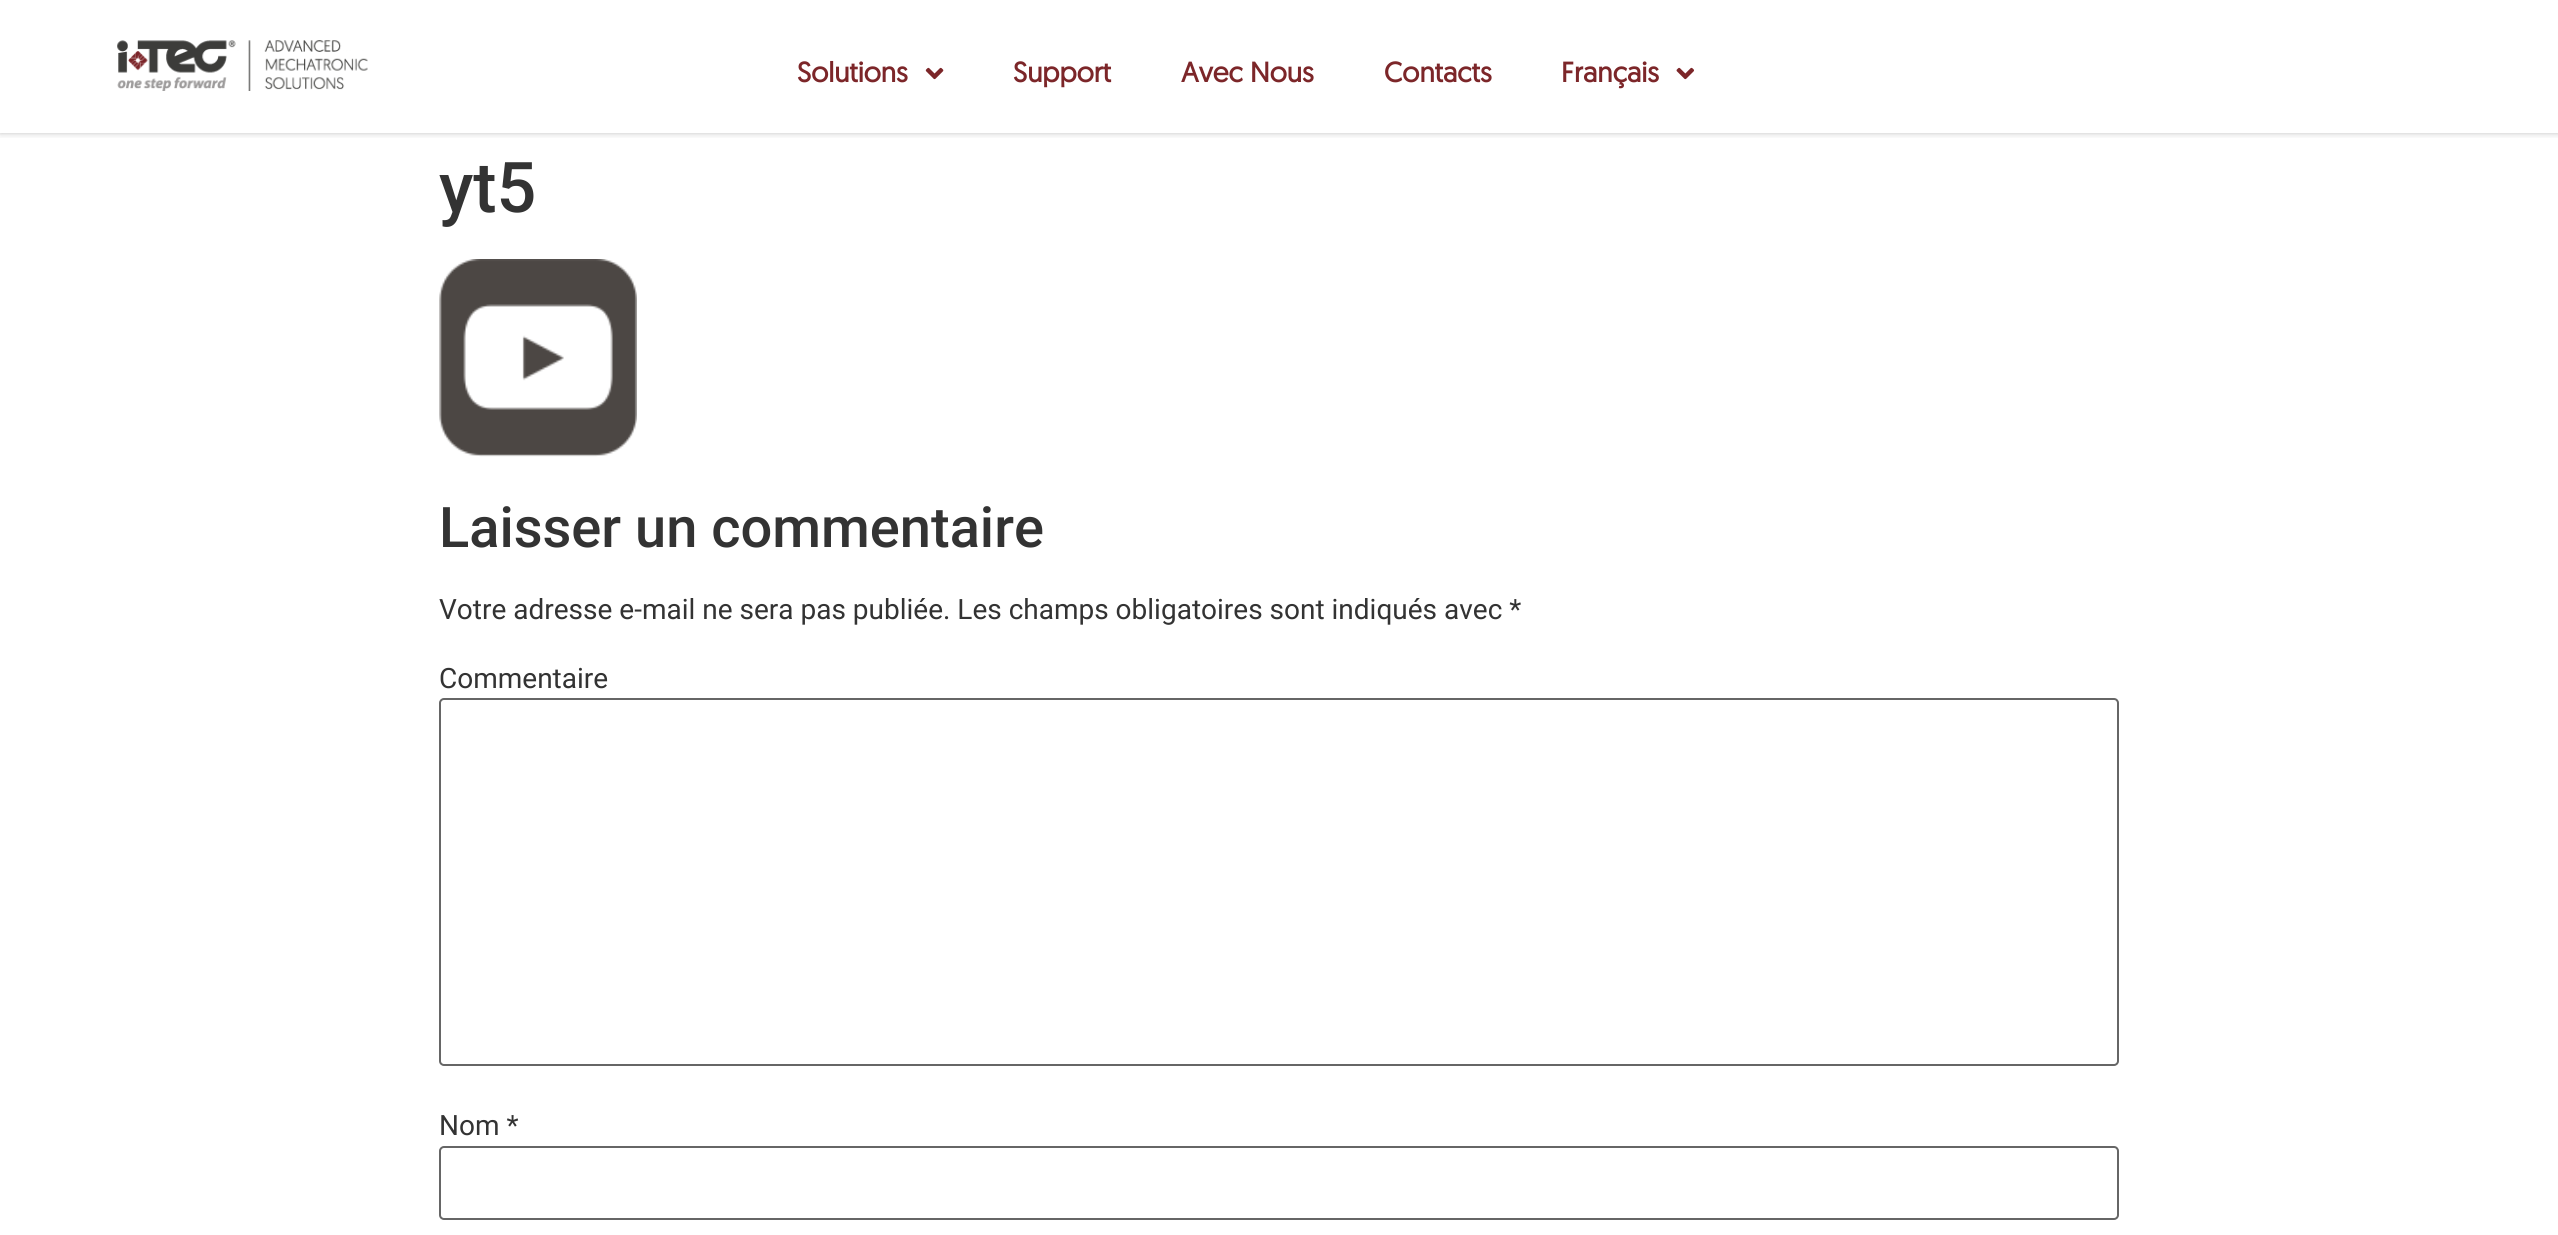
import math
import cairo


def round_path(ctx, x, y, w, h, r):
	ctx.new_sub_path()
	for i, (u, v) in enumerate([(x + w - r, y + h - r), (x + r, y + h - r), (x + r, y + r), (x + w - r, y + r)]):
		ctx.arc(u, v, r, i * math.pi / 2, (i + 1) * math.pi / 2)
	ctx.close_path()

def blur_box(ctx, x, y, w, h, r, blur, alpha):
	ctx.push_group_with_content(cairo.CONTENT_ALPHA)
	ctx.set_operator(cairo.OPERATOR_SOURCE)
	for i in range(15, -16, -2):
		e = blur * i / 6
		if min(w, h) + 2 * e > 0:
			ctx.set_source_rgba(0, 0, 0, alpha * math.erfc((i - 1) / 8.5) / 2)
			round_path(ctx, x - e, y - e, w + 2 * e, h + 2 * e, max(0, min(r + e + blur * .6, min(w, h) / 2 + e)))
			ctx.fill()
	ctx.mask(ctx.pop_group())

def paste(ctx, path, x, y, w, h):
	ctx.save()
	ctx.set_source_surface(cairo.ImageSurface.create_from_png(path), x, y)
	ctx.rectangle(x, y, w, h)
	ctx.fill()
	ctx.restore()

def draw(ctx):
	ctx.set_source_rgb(1, 1, 1)
	ctx.paint()
	ctx.save()
	ctx.rectangle(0, 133, 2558, 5)
	ctx.clip()
	ctx.set_source_rgb(0, 0, 0)
	blur_box(ctx, 0, -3, 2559, 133, 0, 4.5, 0.5)
	ctx.restore()
	paste(ctx, 'media/1.png', 117, 40, 251, 51)
	ctx.select_font_face('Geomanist', cairo.FONT_SLANT_NORMAL, cairo.FONT_WEIGHT_BOLD)
	ctx.set_font_size(28)
	ctx.set_source_rgb(0.486, 0.149, 0.161)
	ctx.move_to(797, 82)
	ctx.show_text('Solutions')
	paste(ctx, 'media/2.png', 925, 67, 19, 13)
	for x, y, s in [
		(1013, 82, 'Support'),
		(1181, 82, 'Avec Nous'),
		(1384, 82, 'Contacts'),
		(1561, 82, 'Français'),
	]:
		ctx.move_to(x, y)
		ctx.show_text(s)
	paste(ctx, 'media/3.png', 1676, 67, 18, 13)
	ctx.select_font_face('Roboto Medium')
	ctx.set_font_size(70)
	ctx.set_source_rgb(0.2, 0.2, 0.2)
	ctx.move_to(439, 212)
	ctx.show_text('yt5')
	paste(ctx, 'media/4.png', 439, 259, 198, 198)
	ctx.set_font_size(56)
	ctx.move_to(439, 547)
	ctx.show_text('Laisser un commentaire')
	ctx.select_font_face('Roboto')
	ctx.set_font_size(28)
	ctx.move_to(439, 619)
	ctx.show_text('Votre adresse e-mail ne sera pas publiée. Les champs obligatoires sont indiqués avec *')
	ctx.move_to(439, 688)
	ctx.show_text('Commentaire')
	round_path(ctx, 440, 699, 1678, 366, 4)
	ctx.set_source_rgb(0.4, 0.4, 0.4)
	ctx.stroke()
	ctx.set_source_rgb(0.2, 0.2, 0.2)
	ctx.move_to(439, 1135)
	ctx.show_text('Nom *')
	round_path(ctx, 440, 1147, 1678, 72, 4)
	ctx.set_source_rgb(0.4, 0.4, 0.4)
	ctx.stroke()


surface = cairo.ImageSurface(cairo.FORMAT_RGB24, 2558, 1235)
ctx = cairo.Context(surface)
options = cairo.FontOptions()
options.set_hint_metrics(cairo.HINT_METRICS_OFF)
options.set_hint_style(cairo.HINT_STYLE_NONE)
ctx.set_font_options(options)
ctx.set_miter_limit(4)
draw(ctx)
surface.write_to_png('image.png')
